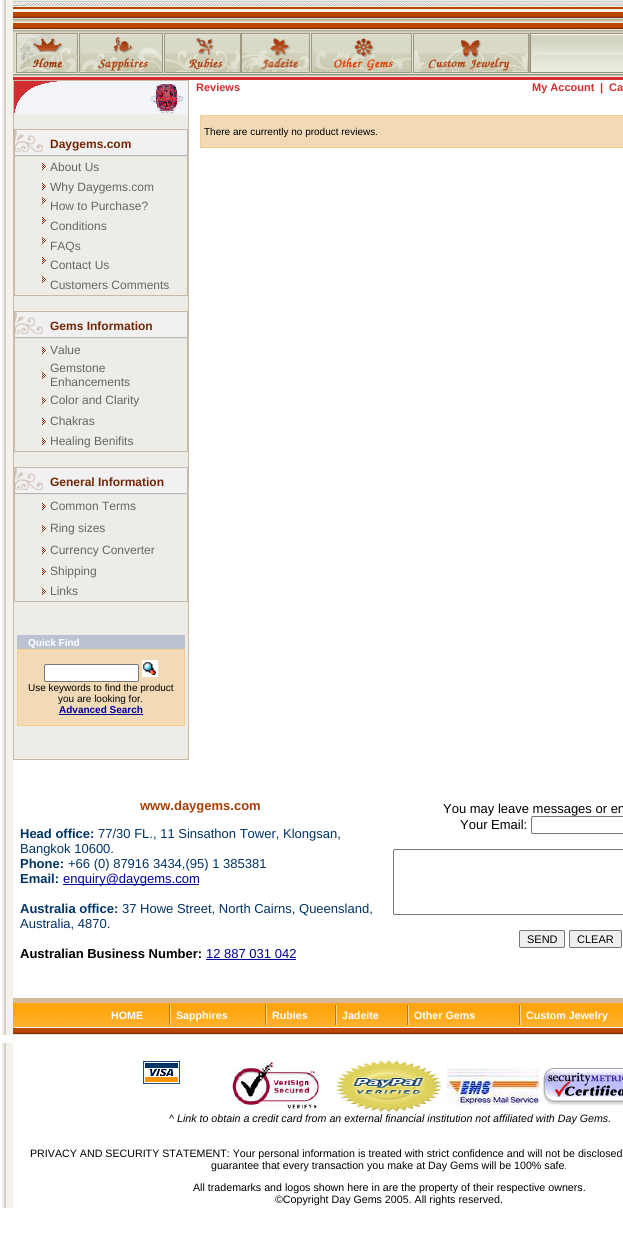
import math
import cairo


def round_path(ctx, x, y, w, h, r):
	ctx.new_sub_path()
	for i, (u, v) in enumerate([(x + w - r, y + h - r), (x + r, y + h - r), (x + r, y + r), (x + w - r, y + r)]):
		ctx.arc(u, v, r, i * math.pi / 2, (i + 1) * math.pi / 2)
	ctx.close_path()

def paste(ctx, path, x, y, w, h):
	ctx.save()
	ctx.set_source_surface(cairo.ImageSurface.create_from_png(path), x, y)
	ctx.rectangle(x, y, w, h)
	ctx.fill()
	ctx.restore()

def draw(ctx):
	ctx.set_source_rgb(1, 1, 1)
	ctx.paint()
	paste(ctx, 'media/1.png', 2, 0, 11, 10)
	paste(ctx, 'media/2.png', 13, 0, 610, 10)
	paste(ctx, 'media/3.png', 13, 3, 6, 3)
	paste(ctx, 'media/4.png', 19, 3, 6, 3)
	paste(ctx, 'media/5.png', 2, 10, 11, 1025)
	paste(ctx, 'media/6.png', 13, 11, 610, 11)
	paste(ctx, 'media/6.png', 13, 22, 610, 11)
	ctx.set_source_rgb(0.855, 0.839, 0.745)
	ctx.rectangle(13, 33, 2, 40)
	ctx.fill()
	paste(ctx, 'media/7.png', 15, 33, 63, 40)
	paste(ctx, 'media/8.png', 78, 33, 85, 40)
	paste(ctx, 'media/9.png', 163, 33, 78, 40)
	paste(ctx, 'media/10.png', 241, 33, 69, 40)
	paste(ctx, 'media/11.png', 310, 33, 102, 40)
	paste(ctx, 'media/12.png', 412, 33, 117, 40)
	paste(ctx, 'media/13.png', 529, 33, 15, 40)
	paste(ctx, 'media/14.png', 544, 33, 66, 40)
	paste(ctx, 'media/15.png', 610, 33, 13, 40)
	paste(ctx, 'media/16.png', 13, 73, 610, 4)
	ctx.set_source_rgb(0.816, 0.18, 0.184)
	ctx.rectangle(13, 77, 610, 3)
	ctx.fill()
	ctx.select_font_face('Liberation Sans', cairo.FONT_SLANT_NORMAL, cairo.FONT_WEIGHT_BOLD)
	ctx.set_font_size(11)
	for x, y, s in [
		(196, 91, 'Reviews'),
		(532, 91, 'My Account'),
		(600, 91, '|'),
		(609, 91, 'Ca'),
	]:
		ctx.move_to(x, y)
		ctx.show_text(s)
	ctx.set_source_rgb(0.957, 0.804, 0.565)
	ctx.rectangle(200, 115, 423, 33)
	ctx.fill()
	ctx.set_source_rgb(0.949, 0.855, 0.714)
	ctx.rectangle(201, 116, 422, 31)
	ctx.fill()
	ctx.select_font_face('Liberation Sans')
	ctx.set_font_size(10)
	ctx.set_source_rgb(0, 0, 0)
	ctx.move_to(204, 135)
	ctx.show_text('There are currently no product reviews.')
	ctx.set_source_rgb(0.929, 0.922, 0.902)
	ctx.rectangle(14, 114, 174, 645)
	ctx.fill()
	ctx.rectangle(13.5, 80.5, 175, 679)
	ctx.set_source_rgb(0.788, 0.725, 0.663)
	ctx.set_line_width(1)
	ctx.stroke()
	paste(ctx, 'media/17.png', 14, 81, 174, 33)
	ctx.rectangle(14.5, 129.5, 173, 166)
	ctx.stroke()
	paste(ctx, 'media/18.png', 15, 130, 35, 27)
	paste(ctx, 'media/19.png', 50, 130, 137, 27)
	ctx.select_font_face('Liberation Sans', cairo.FONT_SLANT_NORMAL, cairo.FONT_WEIGHT_BOLD)
	ctx.set_font_size(12)
	ctx.set_source_rgb(0.451, 0.149, 0.02)
	ctx.move_to(50, 148)
	ctx.show_text('Daygems.com')
	paste(ctx, 'media/20.png', 42, 163, 4, 7)
	ctx.select_font_face('Liberation Sans')
	ctx.set_source_rgb(0.4, 0.4, 0.4)
	ctx.move_to(50, 171)
	ctx.show_text('About Us')
	paste(ctx, 'media/20.png', 42, 183, 4, 7)
	ctx.move_to(50, 191)
	ctx.show_text('Why Daygems.com')
	paste(ctx, 'media/20.png', 42, 197, 4, 7)
	ctx.move_to(50, 210)
	ctx.show_text('How to Purchase?')
	paste(ctx, 'media/20.png', 42, 217, 4, 7)
	ctx.move_to(50, 230)
	ctx.show_text('Conditions')
	paste(ctx, 'media/20.png', 42, 237, 4, 7)
	ctx.move_to(50, 250)
	ctx.show_text('FAQs')
	paste(ctx, 'media/20.png', 42, 257, 4, 7)
	ctx.move_to(50, 269)
	ctx.show_text('Contact Us')
	paste(ctx, 'media/20.png', 42, 276, 4, 7)
	ctx.move_to(50, 289)
	ctx.show_text('Customers Comments')
	ctx.rectangle(14.5, 311.5, 173, 140)
	ctx.set_source_rgb(0.788, 0.725, 0.663)
	ctx.stroke()
	paste(ctx, 'media/18.png', 15, 312, 35, 27)
	paste(ctx, 'media/19.png', 50, 312, 137, 27)
	ctx.select_font_face('Liberation Sans', cairo.FONT_SLANT_NORMAL, cairo.FONT_WEIGHT_BOLD)
	ctx.set_source_rgb(0.451, 0.149, 0.02)
	ctx.move_to(50, 330)
	ctx.show_text('Gems Information')
	paste(ctx, 'media/20.png', 42, 347, 4, 7)
	ctx.select_font_face('Liberation Sans')
	ctx.set_source_rgb(0.4, 0.4, 0.4)
	ctx.move_to(50, 354)
	ctx.show_text('Value')
	paste(ctx, 'media/20.png', 42, 372, 4, 7)
	ctx.move_to(50, 372)
	ctx.show_text('Gemstone')
	ctx.move_to(50, 386)
	ctx.show_text('Enhancements')
	paste(ctx, 'media/20.png', 42, 397, 4, 7)
	ctx.move_to(50, 404)
	ctx.show_text('Color and Clarity')
	paste(ctx, 'media/20.png', 42, 418, 4, 7)
	ctx.move_to(50, 425)
	ctx.show_text('Chakras')
	paste(ctx, 'media/20.png', 42, 438, 4, 7)
	ctx.move_to(50, 445)
	ctx.show_text('Healing Benifits')
	ctx.rectangle(14.5, 467.5, 173, 134)
	ctx.set_source_rgb(0.788, 0.725, 0.663)
	ctx.stroke()
	paste(ctx, 'media/18.png', 15, 468, 35, 27)
	paste(ctx, 'media/19.png', 50, 468, 137, 27)
	ctx.select_font_face('Liberation Sans', cairo.FONT_SLANT_NORMAL, cairo.FONT_WEIGHT_BOLD)
	ctx.set_source_rgb(0.451, 0.149, 0.02)
	ctx.move_to(50, 486)
	ctx.show_text('General Information')
	paste(ctx, 'media/20.png', 42, 503, 4, 7)
	ctx.select_font_face('Liberation Sans')
	ctx.set_source_rgb(0.4, 0.4, 0.4)
	ctx.move_to(50, 510)
	ctx.show_text('Common Terms')
	paste(ctx, 'media/20.png', 42, 525, 4, 7)
	ctx.move_to(50, 532)
	ctx.show_text('Ring sizes')
	paste(ctx, 'media/20.png', 42, 547, 4, 7)
	ctx.move_to(50, 554)
	ctx.show_text('Currency Converter')
	paste(ctx, 'media/20.png', 42, 568, 4, 7)
	ctx.move_to(50, 575)
	ctx.show_text('Shipping')
	paste(ctx, 'media/20.png', 42, 588, 4, 7)
	ctx.move_to(50, 595)
	ctx.show_text('Links')
	ctx.set_source_rgb(0.733, 0.765, 0.827)
	ctx.rectangle(17, 635, 168, 14)
	ctx.fill()
	ctx.select_font_face('Liberation Sans', cairo.FONT_SLANT_NORMAL, cairo.FONT_WEIGHT_BOLD)
	ctx.set_font_size(10)
	ctx.set_source_rgb(1, 1, 1)
	ctx.move_to(28, 646)
	ctx.show_text('Quick Find')
	ctx.set_source_rgb(0.957, 0.804, 0.565)
	ctx.rectangle(17, 649, 168, 77)
	ctx.fill()
	ctx.set_source_rgb(0.949, 0.855, 0.714)
	ctx.rectangle(18, 650, 166, 75)
	ctx.fill()
	ctx.set_source_rgb(1, 1, 1)
	round_path(ctx, 44.5, 664.5, 94, 17, 1.5)
	ctx.fill_preserve()
	ctx.set_source_rgb(0.463, 0.463, 0.463)
	ctx.stroke()
	paste(ctx, 'media/21.png', 142, 660, 16, 17)
	ctx.select_font_face('Liberation Sans')
	ctx.set_source_rgb(0, 0, 0)
	ctx.move_to(28, 691)
	ctx.show_text('Use keywords to find the product')
	ctx.move_to(58, 702)
	ctx.show_text('you are looking for.')
	ctx.select_font_face('Liberation Sans', cairo.FONT_SLANT_NORMAL, cairo.FONT_WEIGHT_BOLD)
	ctx.set_source_rgb(0, 0, 0.6)
	ctx.move_to(59, 713)
	ctx.show_text('Advanced Search')
	ctx.rectangle(59, 714, 84, 1)
	ctx.fill()
	ctx.set_font_size(13)
	ctx.set_source_rgb(0.663, 0.243, 0.02)
	ctx.move_to(140, 810)
	ctx.show_text('www.daygems.com')
	ctx.set_source_rgb(0, 0.2, 0.4)
	ctx.move_to(20, 838)
	ctx.show_text('Head office:')
	ctx.select_font_face('Liberation Sans')
	ctx.move_to(98, 838)
	ctx.show_text('77/30 FL., 11 Sinsathon Tower, Klongsan,')
	ctx.move_to(20, 853)
	ctx.show_text('Bangkok 10600.')
	ctx.select_font_face('Liberation Sans', cairo.FONT_SLANT_NORMAL, cairo.FONT_WEIGHT_BOLD)
	ctx.move_to(20, 868)
	ctx.show_text('Phone:')
	ctx.select_font_face('Liberation Sans')
	ctx.move_to(68, 868)
	ctx.show_text('+66 (0) 87916 3434,(95) 1 385381')
	ctx.select_font_face('Liberation Sans', cairo.FONT_SLANT_NORMAL, cairo.FONT_WEIGHT_BOLD)
	ctx.move_to(20, 883)
	ctx.show_text('Email:')
	ctx.set_source_rgb(0, 0, 0.6)
	ctx.rectangle(63, 884, 136, 1)
	ctx.fill()
	ctx.select_font_face('Liberation Sans')
	ctx.move_to(63, 883)
	ctx.show_text('enquiry@daygems.com')
	ctx.select_font_face('Liberation Sans', cairo.FONT_SLANT_NORMAL, cairo.FONT_WEIGHT_BOLD)
	ctx.set_source_rgb(0, 0.2, 0.4)
	ctx.move_to(20, 913)
	ctx.show_text('Australia office:')
	ctx.select_font_face('Liberation Sans')
	ctx.move_to(122, 913)
	ctx.show_text('37 Howe Street, North Cairns, Queensland,')
	ctx.move_to(20, 928)
	ctx.show_text('Australia, 4870.')
	ctx.select_font_face('Liberation Sans', cairo.FONT_SLANT_NORMAL, cairo.FONT_WEIGHT_BOLD)
	ctx.set_source_rgb(0, 0, 0)
	ctx.move_to(20, 958)
	ctx.show_text('Australian Business Number:')
	ctx.select_font_face('Liberation Sans')
	ctx.set_source_rgb(0, 0, 0.6)
	ctx.move_to(206, 958)
	ctx.show_text('12 887 031 042')
	ctx.rectangle(206, 959, 90, 1)
	ctx.fill()
	ctx.set_source_rgb(0, 0, 0)
	ctx.move_to(443, 813)
	ctx.show_text('You may leave messages or en')
	ctx.move_to(460, 829)
	ctx.show_text('Your Email:')
	round_path(ctx, 531.5, 816.5, 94, 17, 1.5)
	ctx.set_source_rgb(0.463, 0.463, 0.463)
	ctx.stroke()
	round_path(ctx, 393.5, 849.5, 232, 65, 1.5)
	ctx.stroke()
	ctx.set_source_rgb(0.937, 0.937, 0.937)
	round_path(ctx, 519.5, 930.5, 45, 17, 1.5)
	ctx.fill_preserve()
	ctx.set_source_rgb(0.463, 0.463, 0.463)
	ctx.stroke()
	ctx.set_font_size(11)
	ctx.set_source_rgb(0, 0, 0)
	ctx.move_to(527, 943)
	ctx.show_text('SEND')
	ctx.set_source_rgb(0.937, 0.937, 0.937)
	round_path(ctx, 569.5, 930.5, 52, 17, 1.5)
	ctx.fill_preserve()
	ctx.set_source_rgb(0.463, 0.463, 0.463)
	ctx.stroke()
	ctx.set_source_rgb(0, 0, 0)
	ctx.move_to(577, 943)
	ctx.show_text('CLEAR')
	ctx.set_source_rgb(0.835, 0.725, 0.596)
	ctx.rectangle(13, 998, 610, 5)
	ctx.fill()
	paste(ctx, 'media/22.png', 13, 1003, 610, 24)
	ctx.select_font_face('Liberation Sans', cairo.FONT_SLANT_NORMAL, cairo.FONT_WEIGHT_BOLD)
	ctx.set_font_size(10.67)
	ctx.set_source_rgb(1, 1, 1)
	ctx.move_to(111, 1019)
	ctx.show_text('HOME')
	paste(ctx, 'media/23.png', 169, 1005, 2, 20)
	ctx.move_to(176, 1019)
	ctx.show_text('Sapphires')
	paste(ctx, 'media/23.png', 265, 1005, 2, 20)
	ctx.move_to(272, 1019)
	ctx.show_text('Rubies')
	paste(ctx, 'media/23.png', 335, 1005, 2, 20)
	ctx.move_to(342, 1019)
	ctx.show_text('Jadeite')
	paste(ctx, 'media/23.png', 407, 1005, 2, 20)
	ctx.move_to(414, 1019)
	ctx.show_text('Other Gems')
	paste(ctx, 'media/23.png', 519, 1005, 2, 20)
	ctx.move_to(526, 1019)
	ctx.show_text('Custom Jewelry')
	paste(ctx, 'media/24.png', 13, 1027, 610, 8)
	paste(ctx, 'media/25.png', 2, 1043, 11, 165)
	paste(ctx, 'media/26.png', 143, 1061, 37, 23)
	paste(ctx, 'media/27.png', 231, 1060, 88, 52)
	paste(ctx, 'media/28.png', 335, 1060, 107, 52)
	paste(ctx, 'media/29.png', 447, 1068, 92, 37)
	paste(ctx, 'media/30.png', 543, 1068, 80, 38)
	ctx.select_font_face('Liberation Sans', cairo.FONT_SLANT_ITALIC)
	ctx.set_source_rgb(0, 0, 0)
	ctx.move_to(169, 1122)
	ctx.show_text('^ Link to obtain a credit card from an external financial institution not affiliated with Day Gems.')
	ctx.select_font_face('Liberation Sans')
	for x, y, s in [
		(30, 1157, 'PRIVACY AND SECURITY STATEMENT: Your personal information is treated with strict confidence and will not be disclosed'),
		(211, 1169, 'guarantee that every transaction you make at Day Gems will be 100% safe.'),
		(193, 1191, 'All trademarks and logos shown here in are the property of their respective owners.'),
		(275, 1203, '©Copyright Day Gems 2005. All rights reserved.'),
	]:
		ctx.move_to(x, y)
		ctx.show_text(s)


surface = cairo.ImageSurface(cairo.FORMAT_RGB24, 623, 1239)
ctx = cairo.Context(surface)
options = cairo.FontOptions()
options.set_hint_metrics(cairo.HINT_METRICS_OFF)
options.set_hint_style(cairo.HINT_STYLE_NONE)
ctx.set_font_options(options)
ctx.set_miter_limit(4)
draw(ctx)
surface.write_to_png('image.png')
